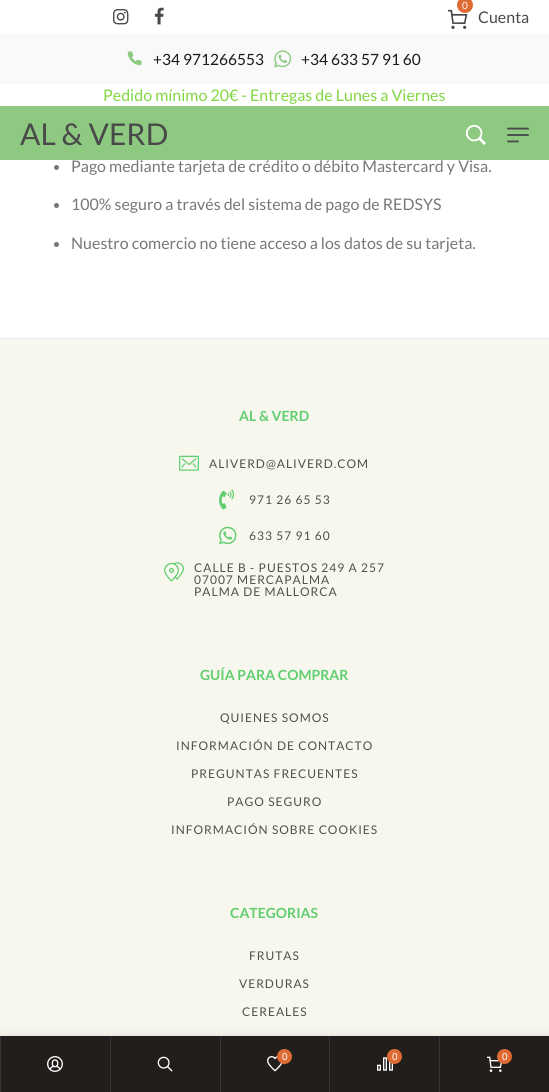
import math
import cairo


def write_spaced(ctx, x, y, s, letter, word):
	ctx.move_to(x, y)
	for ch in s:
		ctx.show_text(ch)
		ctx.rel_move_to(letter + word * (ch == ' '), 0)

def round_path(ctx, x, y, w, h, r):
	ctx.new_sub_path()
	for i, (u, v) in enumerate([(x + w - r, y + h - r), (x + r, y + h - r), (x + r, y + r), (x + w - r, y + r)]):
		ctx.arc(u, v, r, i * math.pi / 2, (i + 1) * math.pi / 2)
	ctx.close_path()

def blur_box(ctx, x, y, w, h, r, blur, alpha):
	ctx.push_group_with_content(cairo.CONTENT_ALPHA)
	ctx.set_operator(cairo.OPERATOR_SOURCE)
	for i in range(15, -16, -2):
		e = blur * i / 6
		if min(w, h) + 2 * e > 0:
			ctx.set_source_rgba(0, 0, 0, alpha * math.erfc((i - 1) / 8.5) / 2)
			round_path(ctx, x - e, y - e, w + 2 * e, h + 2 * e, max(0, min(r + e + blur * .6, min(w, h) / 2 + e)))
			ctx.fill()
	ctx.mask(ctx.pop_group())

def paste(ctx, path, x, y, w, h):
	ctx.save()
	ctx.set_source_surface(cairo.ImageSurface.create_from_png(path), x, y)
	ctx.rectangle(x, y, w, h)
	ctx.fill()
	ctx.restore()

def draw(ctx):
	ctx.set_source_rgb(1, 1, 1)
	ctx.paint()
	paste(ctx, 'media/1.png', 113, 9, 16, 16)
	paste(ctx, 'media/2.png', 154, 7, 10, 18)
	paste(ctx, 'media/3.png', 448, 9, 20, 20)
	ctx.set_source_rgb(0.867, 0.42, 0.2)
	ctx.arc(465, 5, 8, 0, 2 * math.pi)
	ctx.fill()
	ctx.select_font_face('Lato')
	ctx.set_font_size(10)
	ctx.set_source_rgb(1, 1, 1)
	ctx.move_to(462, 9)
	ctx.show_text('0')
	ctx.set_font_size(16)
	ctx.set_source_rgb(0.286, 0.286, 0.286)
	ctx.move_to(478, 23)
	ctx.show_text('Cuenta')
	ctx.set_source_rgb(0.976, 0.976, 0.976)
	ctx.rectangle(0, 34, 549, 50)
	ctx.fill()
	paste(ctx, 'media/4.png', 127, 51, 15, 15)
	ctx.set_font_size(15.5)
	ctx.set_source_rgb(0.102, 0.102, 0.102)
	ctx.move_to(153, 65)
	ctx.show_text('+34 971266553')
	paste(ctx, 'media/5.png', 274, 50, 18, 18)
	ctx.move_to(301, 65)
	ctx.show_text('+34 633 57 91 60')
	ctx.set_font_size(16)
	ctx.set_source_rgb(0.506, 0.843, 0.259)
	ctx.move_to(103, 101)
	ctx.show_text('Pedido mínimo 20€ - Entregas de Lunes a Viernes')
	ctx.set_source_rgb(0.553, 0.788, 0.502)
	ctx.rectangle(0, 106, 549, 54)
	ctx.fill()
	ctx.set_font_size(30)
	ctx.set_source_rgb(0.286, 0.286, 0.286)
	ctx.move_to(20, 145)
	ctx.show_text('AL & VERD')
	paste(ctx, 'media/6.png', 465, 124, 21, 21)
	paste(ctx, 'media/7.png', 507, 127, 22, 16)
	ctx.set_source_rgb(0.467, 0.467, 0.467)
	ctx.arc(56.5, 167.5, 2.5, 0, 2 * math.pi)
	ctx.fill()
	ctx.set_font_size(16)
	ctx.move_to(71, 172)
	ctx.show_text('Pago mediante tarjeta de crédito o débito Mastercard y Visa.')
	ctx.new_path()
	ctx.arc(56.5, 205.5, 2.5, 0, 2 * math.pi)
	ctx.fill()
	ctx.move_to(71, 210)
	ctx.show_text('100% seguro a través del sistema de pago de REDSYS')
	ctx.new_path()
	ctx.arc(56.5, 244.5, 2.5, 0, 2 * math.pi)
	ctx.fill()
	ctx.move_to(71, 249)
	ctx.show_text('Nuestro comercio no tiene acceso a los datos de su tarjeta.')
	ctx.set_source_rgb(0.965, 0.965, 0.933)
	ctx.rectangle(0, 339, 549, 697)
	ctx.fill()
	ctx.set_source_rgb(0.922, 0.922, 0.922)
	ctx.rectangle(0, 338, 549, 1)
	ctx.fill()
	ctx.select_font_face('Lato', cairo.FONT_SLANT_NORMAL, cairo.FONT_WEIGHT_BOLD)
	ctx.set_font_size(14)
	ctx.set_source_rgb(0.38, 0.808, 0.439)
	ctx.move_to(239, 421)
	ctx.show_text('AL & VERD')
	paste(ctx, 'media/8.png', 179, 455, 20, 16)
	ctx.select_font_face('Lato')
	ctx.set_font_size(12)
	ctx.set_source_rgb(0.318, 0.31, 0.31)
	write_spaced(ctx, 209, 468, 'ALIVERD@ALIVERD.COM', 1, 0)
	paste(ctx, 'media/9.png', 219, 489, 15, 21)
	write_spaced(ctx, 249, 504, '971 26 65 53', 1, 0)
	paste(ctx, 'media/10.png', 219, 526, 18, 19)
	write_spaced(ctx, 249, 540, '633 57 91 60', 1, 0)
	paste(ctx, 'media/11.png', 164, 562, 20, 20)
	for x, y, s in [
		(194, 572, 'CALLE B - PUESTOS 249 A 257'),
		(194, 584, '07007 MERCAPALMA'),
		(194, 596, 'PALMA DE MALLORCA'),
	]:
		write_spaced(ctx, x, y, s, 1, 0)
	ctx.select_font_face('Lato', cairo.FONT_SLANT_NORMAL, cairo.FONT_WEIGHT_BOLD)
	ctx.set_font_size(14)
	ctx.set_source_rgb(0.38, 0.808, 0.439)
	ctx.move_to(200, 680)
	ctx.show_text('GUÍA PARA COMPRAR')
	ctx.select_font_face('Lato')
	ctx.set_font_size(12)
	ctx.set_source_rgb(0.318, 0.31, 0.31)
	for x, y, s in [
		(220, 722, 'QUIENES SOMOS'),
		(176, 750, 'INFORMACIÓN DE CONTACTO'),
		(191, 778, 'PREGUNTAS FRECUENTES'),
		(227, 806, 'PAGO SEGURO'),
		(171, 834, 'INFORMACIÓN SOBRE COOKIES'),
	]:
		write_spaced(ctx, x, y, s, 1, 0)
	ctx.select_font_face('Lato', cairo.FONT_SLANT_NORMAL, cairo.FONT_WEIGHT_BOLD)
	ctx.set_font_size(14)
	ctx.set_source_rgb(0.38, 0.808, 0.439)
	ctx.move_to(230, 918)
	ctx.show_text('CATEGORIAS')
	ctx.select_font_face('Lato')
	ctx.set_font_size(12)
	ctx.set_source_rgb(0.318, 0.31, 0.31)
	for x, y, s in [
		(249, 960, 'FRUTAS'),
		(239, 988, 'VERDURAS'),
		(242, 1016, 'CEREALES'),
	]:
		write_spaced(ctx, x, y, s, 1, 0)
	ctx.set_source_rgb(0, 0, 0)
	blur_box(ctx, -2, 1036, 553, 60, 0, 6, 0.1)
	ctx.set_source_rgb(0.129, 0.118, 0.11)
	ctx.rectangle(1, 1036, 548, 56)
	ctx.fill()
	ctx.set_source_rgb(0.216, 0.208, 0.2)
	ctx.rectangle(0, 1036, 1, 56)
	ctx.fill()
	paste(ctx, 'media/12.png', 47, 1056, 16, 16)
	ctx.rectangle(110, 1036, 1, 56)
	ctx.fill()
	paste(ctx, 'media/13.png', 157, 1056, 16, 16)
	ctx.rectangle(220, 1036, 1, 56)
	ctx.fill()
	paste(ctx, 'media/14.png', 267, 1056, 16, 16)
	ctx.set_source_rgb(0.867, 0.42, 0.2)
	ctx.arc(284.5, 1056.5, 7.5, 0, 2 * math.pi)
	ctx.fill()
	ctx.select_font_face('Liberation Sans')
	ctx.set_font_size(10)
	ctx.set_source_rgb(1, 1, 1)
	ctx.move_to(282, 1060)
	ctx.show_text('0')
	ctx.set_source_rgb(0.216, 0.208, 0.2)
	ctx.rectangle(329, 1036, 1, 56)
	ctx.fill()
	paste(ctx, 'media/15.png', 377, 1057, 16, 14)
	ctx.set_source_rgb(0.867, 0.42, 0.2)
	ctx.arc(394.5, 1056.5, 7.5, 0, 2 * math.pi)
	ctx.fill()
	ctx.set_source_rgb(1, 1, 1)
	ctx.move_to(392, 1060)
	ctx.show_text('0')
	ctx.set_source_rgb(0.216, 0.208, 0.2)
	ctx.rectangle(439, 1036, 1, 56)
	ctx.fill()
	paste(ctx, 'media/16.png', 487, 1056, 15, 16)
	ctx.set_source_rgb(0.867, 0.42, 0.2)
	ctx.arc(504.5, 1056.5, 7.5, 0, 2 * math.pi)
	ctx.fill()
	ctx.set_source_rgb(1, 1, 1)
	ctx.move_to(502, 1060)
	ctx.show_text('0')


surface = cairo.ImageSurface(cairo.FORMAT_RGB24, 549, 1092)
ctx = cairo.Context(surface)
options = cairo.FontOptions()
options.set_hint_metrics(cairo.HINT_METRICS_OFF)
options.set_hint_style(cairo.HINT_STYLE_NONE)
ctx.set_font_options(options)
ctx.set_miter_limit(4)
draw(ctx)
surface.write_to_png('image.png')
